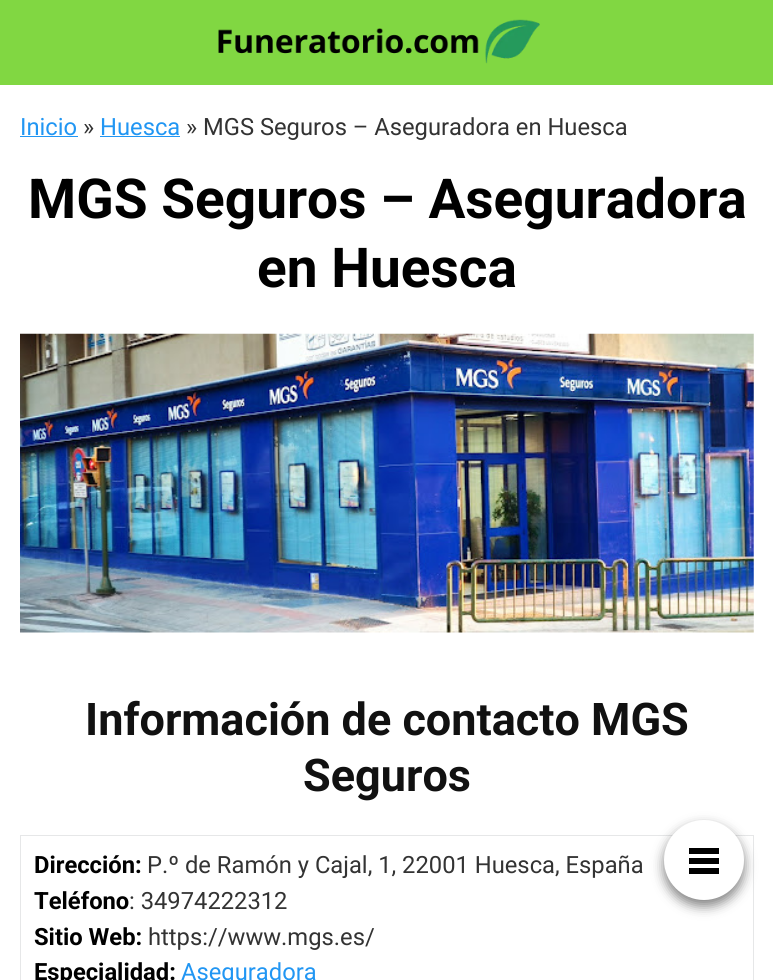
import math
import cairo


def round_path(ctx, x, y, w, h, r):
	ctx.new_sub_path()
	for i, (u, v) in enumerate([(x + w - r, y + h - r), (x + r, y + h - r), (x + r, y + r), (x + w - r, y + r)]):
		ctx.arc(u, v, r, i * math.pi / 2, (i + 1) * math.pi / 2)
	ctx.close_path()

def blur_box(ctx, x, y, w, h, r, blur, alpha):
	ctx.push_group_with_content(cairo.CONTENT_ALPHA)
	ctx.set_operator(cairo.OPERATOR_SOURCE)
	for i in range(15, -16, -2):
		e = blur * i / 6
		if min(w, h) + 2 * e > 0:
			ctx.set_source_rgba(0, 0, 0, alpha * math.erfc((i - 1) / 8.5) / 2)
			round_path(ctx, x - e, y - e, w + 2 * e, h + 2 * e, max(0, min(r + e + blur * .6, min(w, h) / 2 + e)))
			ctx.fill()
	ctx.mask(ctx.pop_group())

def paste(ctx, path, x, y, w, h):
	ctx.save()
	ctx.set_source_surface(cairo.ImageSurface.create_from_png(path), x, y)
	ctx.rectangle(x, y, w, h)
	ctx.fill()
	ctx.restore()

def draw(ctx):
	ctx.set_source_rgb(1, 1, 1)
	ctx.paint()
	ctx.set_source_rgb(0.506, 0.843, 0.259)
	ctx.rectangle(0, 0, 773, 85)
	ctx.fill()
	paste(ctx, 'media/1.png', 218, 19, 322, 45)
	ctx.rectangle(20.5, 835.5, 733, 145)
	ctx.set_source_rgb(0.902, 0.906, 0.91)
	ctx.set_line_width(1)
	ctx.stroke()
	ctx.set_source_rgb(0, 0, 0)
	blur_box(ctx, 664, 826, 80, 80, 40, 6, 0.5)
	ctx.set_source_rgb(1, 1, 1)
	ctx.arc(704, 860, 40, 0, 2 * math.pi)
	ctx.fill()
	ctx.set_source_rgb(0, 0, 0)
	ctx.rectangle(689, 858, 30, 6)
	ctx.rectangle(689, 848, 30, 6)
	ctx.rectangle(689, 868, 30, 6)
	ctx.fill()
	ctx.select_font_face('Roboto')
	ctx.set_font_size(23.75)
	ctx.set_source_rgb(0.129, 0.588, 0.953)
	ctx.move_to(20, 135)
	ctx.show_text('Inicio')
	ctx.rectangle(20, 136, 58, 1)
	ctx.fill()
	ctx.set_source_rgb(0.2, 0.2, 0.2)
	ctx.move_to(83, 135)
	ctx.show_text('»')
	ctx.set_source_rgb(0.129, 0.588, 0.953)
	ctx.move_to(100, 135)
	ctx.show_text('Huesca')
	ctx.rectangle(100, 136, 80, 1)
	ctx.fill()
	ctx.set_source_rgb(0.2, 0.2, 0.2)
	ctx.move_to(186, 135)
	ctx.show_text('» MGS Seguros – Aseguradora en Huesca')
	ctx.select_font_face('Roboto', cairo.FONT_SLANT_NORMAL, cairo.FONT_WEIGHT_BOLD)
	ctx.set_font_size(55)
	ctx.set_source_rgb(0, 0, 0)
	ctx.move_to(28, 218)
	ctx.show_text('MGS Seguros – Aseguradora')
	ctx.move_to(257, 287)
	ctx.show_text('en Huesca')
	paste(ctx, 'media/2.png', 20, 333, 734, 300)
	ctx.set_font_size(45)
	ctx.set_source_rgb(0.067, 0.067, 0.067)
	ctx.move_to(85, 735)
	ctx.show_text('Información de contacto MGS')
	ctx.move_to(303, 791)
	ctx.show_text('Seguros')
	ctx.set_font_size(23.75)
	ctx.set_source_rgb(0, 0, 0)
	ctx.move_to(34, 873)
	ctx.show_text('Dirección:')
	ctx.select_font_face('Roboto')
	ctx.set_source_rgb(0.2, 0.2, 0.2)
	ctx.move_to(147, 873)
	ctx.show_text('P.º de Ramón y Cajal, 1, 22001 Huesca, España')
	ctx.select_font_face('Roboto', cairo.FONT_SLANT_NORMAL, cairo.FONT_WEIGHT_BOLD)
	ctx.set_source_rgb(0, 0, 0)
	ctx.move_to(34, 909)
	ctx.show_text('Teléfono')
	ctx.select_font_face('Roboto')
	ctx.set_source_rgb(0.2, 0.2, 0.2)
	ctx.move_to(129, 909)
	ctx.show_text(': 34974222312')
	ctx.select_font_face('Roboto', cairo.FONT_SLANT_NORMAL, cairo.FONT_WEIGHT_BOLD)
	ctx.set_source_rgb(0, 0, 0)
	ctx.move_to(34, 945)
	ctx.show_text('Sitio Web:')
	ctx.select_font_face('Roboto')
	ctx.set_source_rgb(0.2, 0.2, 0.2)
	ctx.move_to(148, 945)
	ctx.show_text('https://www.mgs.es/')
	ctx.select_font_face('Roboto', cairo.FONT_SLANT_NORMAL, cairo.FONT_WEIGHT_BOLD)
	ctx.set_source_rgb(0, 0, 0)
	ctx.move_to(34, 980)
	ctx.show_text('Especialidad:')
	ctx.select_font_face('Roboto')
	ctx.set_source_rgb(0.129, 0.588, 0.953)
	ctx.move_to(181, 980)
	ctx.show_text('Aseguradora')


surface = cairo.ImageSurface(cairo.FORMAT_RGB24, 773, 980)
ctx = cairo.Context(surface)
options = cairo.FontOptions()
options.set_hint_metrics(cairo.HINT_METRICS_OFF)
options.set_hint_style(cairo.HINT_STYLE_NONE)
ctx.set_font_options(options)
ctx.set_miter_limit(4)
draw(ctx)
surface.write_to_png('image.png')
